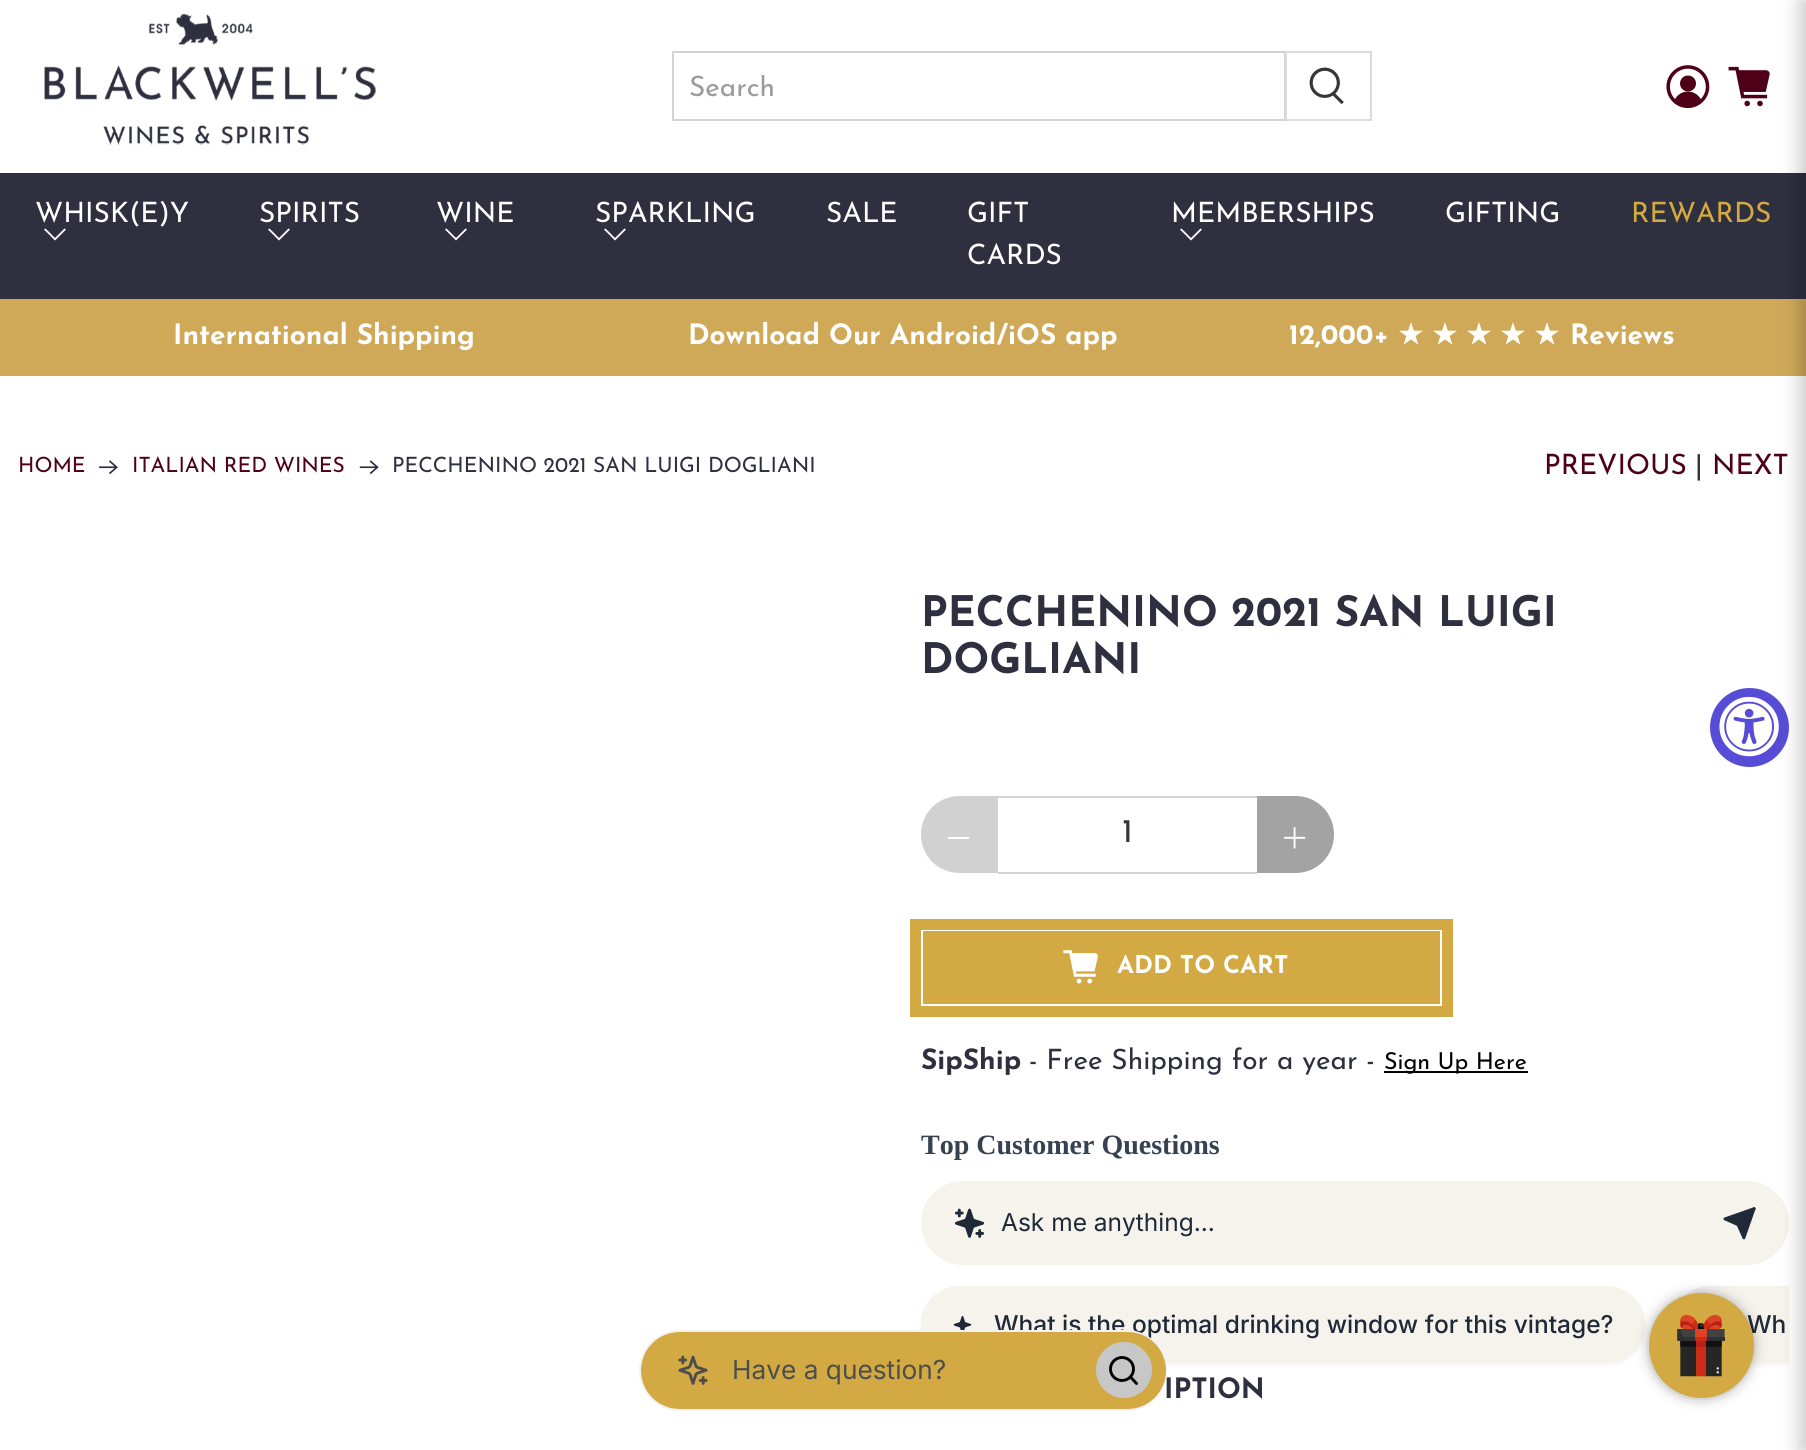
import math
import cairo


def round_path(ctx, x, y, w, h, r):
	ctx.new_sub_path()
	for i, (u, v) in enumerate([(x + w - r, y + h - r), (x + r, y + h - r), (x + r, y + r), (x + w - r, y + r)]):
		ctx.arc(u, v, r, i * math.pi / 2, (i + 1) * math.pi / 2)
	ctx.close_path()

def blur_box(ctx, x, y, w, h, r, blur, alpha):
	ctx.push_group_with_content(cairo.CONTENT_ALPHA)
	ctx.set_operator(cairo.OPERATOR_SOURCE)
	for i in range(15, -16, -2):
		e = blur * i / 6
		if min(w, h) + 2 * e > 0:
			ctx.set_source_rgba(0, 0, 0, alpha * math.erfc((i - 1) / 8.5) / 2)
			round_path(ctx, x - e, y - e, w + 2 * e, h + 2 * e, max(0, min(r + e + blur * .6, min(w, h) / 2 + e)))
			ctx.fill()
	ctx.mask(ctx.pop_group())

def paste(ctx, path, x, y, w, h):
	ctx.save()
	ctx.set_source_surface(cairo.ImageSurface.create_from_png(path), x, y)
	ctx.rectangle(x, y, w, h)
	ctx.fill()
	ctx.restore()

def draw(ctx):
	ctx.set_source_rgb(1, 1, 1)
	ctx.paint()
	paste(ctx, 'media/1.png', 44, 14, 332, 131)
	ctx.rectangle(673, 52, 612, 68)
	ctx.set_source_rgb(0.827, 0.827, 0.827)
	ctx.stroke()
	ctx.save()
	ctx.rectangle(690, 75, 579, 28)
	ctx.clip()
	ctx.select_font_face('Josefin Sans')
	ctx.set_font_size(28)
	ctx.set_source_rgb(0.608, 0.608, 0.608)
	ctx.move_to(689, 96)
	ctx.show_text('Search')
	ctx.restore()
	ctx.rectangle(1286, 52, 85, 68)
	ctx.set_source_rgb(0.859, 0.859, 0.859)
	ctx.stroke()
	paste(ctx, 'media/2.png', 1309, 67, 35, 38)
	paste(ctx, 'media/3.png', 1666, 65, 44, 44)
	paste(ctx, 'media/4.png', 1728, 66, 42, 41)
	ctx.set_source_rgb(0.18, 0.184, 0.247)
	ctx.rectangle(0, 173, 1806, 126)
	ctx.fill()
	ctx.select_font_face('Josefin Sans')
	ctx.set_font_size(28)
	ctx.set_source_rgb(1, 1, 1)
	ctx.move_to(35, 222)
	ctx.show_text('WHISK(E)Y')
	ctx.new_path()
	ctx.move_to(55, 240.5)
	ctx.line_to(44, 229.5)
	ctx.line_to(45.5, 228.5)
	ctx.line_to(55, 238)
	ctx.line_to(64.5, 228.5)
	ctx.line_to(66, 229.5)
	ctx.close_path()
	ctx.fill()
	ctx.move_to(259, 222)
	ctx.show_text('SPIRITS')
	ctx.new_path()
	ctx.move_to(279, 240.5)
	ctx.line_to(268, 229.5)
	ctx.line_to(269.5, 228.5)
	ctx.line_to(279, 238)
	ctx.line_to(288.5, 228.5)
	ctx.line_to(290, 229.5)
	ctx.close_path()
	ctx.fill()
	ctx.move_to(436, 222)
	ctx.show_text('WINE')
	ctx.new_path()
	ctx.move_to(456, 240.5)
	ctx.line_to(445, 229.5)
	ctx.line_to(446.5, 228.5)
	ctx.line_to(456, 238)
	ctx.line_to(465.5, 228.5)
	ctx.line_to(467, 229.5)
	ctx.close_path()
	ctx.fill()
	ctx.move_to(595, 222)
	ctx.show_text('SPARKLING')
	ctx.new_path()
	ctx.move_to(615, 240.5)
	ctx.line_to(604, 229.5)
	ctx.line_to(605.5, 228.5)
	ctx.line_to(615, 238)
	ctx.line_to(624.5, 228.5)
	ctx.line_to(626, 229.5)
	ctx.close_path()
	ctx.fill()
	for x, y, s in [
		(826, 222, 'SALE'),
		(967, 222, 'GIFT'),
		(967, 264, 'CARDS'),
		(1171, 222, 'MEMBERSHIPS'),
	]:
		ctx.move_to(x, y)
		ctx.show_text(s)
	ctx.new_path()
	ctx.move_to(1191, 240.5)
	ctx.line_to(1180, 229.5)
	ctx.line_to(1181.5, 228.5)
	ctx.line_to(1191, 238)
	ctx.line_to(1200.5, 228.5)
	ctx.line_to(1202, 229.5)
	ctx.close_path()
	ctx.fill()
	ctx.move_to(1445, 222)
	ctx.show_text('GIFTING')
	ctx.set_source_rgb(0.827, 0.663, 0.263)
	ctx.move_to(1631, 222)
	ctx.show_text('REWARDS')
	ctx.set_source_rgb(0.812, 0.663, 0.345)
	ctx.rectangle(0, 299, 1806, 77)
	ctx.fill()
	ctx.set_source_rgb(0.961, 0.953, 0.929)
	round_path(ctx, 923, 1183, 864, 80, 40)
	ctx.fill_preserve()
	ctx.set_line_width(4)
	ctx.stroke()
	ctx.save()
	ctx.rectangle(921, 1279, 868, 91)
	ctx.clip()
	ctx.set_source_rgb(0, 0, 0)
	blur_box(ctx, 1673, 1288, 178, 77, 38.5, 2, 0.05)
	ctx.restore()
	ctx.new_path()
	ctx.move_to(1711.5, 1286)
	ctx.line_to(1789, 1286)
	ctx.line_to(1789, 1363)
	ctx.line_to(1711.5, 1363)
	ctx.curve_to(1690, 1363, 1673, 1346, 1673, 1324.5)
	ctx.curve_to(1673, 1303, 1690, 1286, 1711.5, 1286)
	ctx.close_path()
	ctx.fill()
	ctx.save()
	ctx.rectangle(921, 1279, 868, 91)
	ctx.clip()
	round_path(ctx, 1675, 1288, 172, 73, 36.5)
	ctx.stroke()
	ctx.restore()
	ctx.set_source_rgb(0, 0, 0)
	blur_box(ctx, 1799, 0, 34, 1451, 0, 9, 0.2)
	ctx.select_font_face('Josefin Sans', cairo.FONT_SLANT_NORMAL, cairo.FONT_WEIGHT_BOLD)
	ctx.set_source_rgb(1, 1, 1)
	for x, y, s in [
		(173, 344, 'International Shipping'),
		(688, 344, 'Download Our Android/iOS app'),
		(1289, 344, '12,000+'),
	]:
		ctx.move_to(x, y)
		ctx.show_text(s)
	ctx.select_font_face('DejaVu Sans', cairo.FONT_SLANT_NORMAL, cairo.FONT_WEIGHT_BOLD)
	ctx.move_to(1398, 344)
	ctx.show_text('★ ★ ★ ★ ★')
	ctx.select_font_face('Josefin Sans', cairo.FONT_SLANT_NORMAL, cairo.FONT_WEIGHT_BOLD)
	ctx.move_to(1570, 344)
	ctx.show_text('Reviews')
	ctx.select_font_face('Josefin Sans')
	ctx.set_font_size(21)
	ctx.set_source_rgb(0.302, 0, 0.09)
	ctx.move_to(18, 472)
	ctx.show_text('HOME')
	paste(ctx, 'media/5.png', 99, 460, 19, 15)
	ctx.move_to(132, 472)
	ctx.show_text('ITALIAN RED WINES')
	paste(ctx, 'media/6.png', 359, 460, 20, 15)
	ctx.set_source_rgb(0.18, 0.184, 0.247)
	ctx.move_to(392, 472)
	ctx.show_text('PECCHENINO 2021 SAN LUIGI DOGLIANI')
	ctx.set_font_size(28)
	ctx.set_source_rgb(0.302, 0, 0.09)
	ctx.move_to(1544, 474)
	ctx.show_text('PREVIOUS')
	ctx.set_source_rgb(0.18, 0.184, 0.247)
	ctx.move_to(1695, 474)
	ctx.show_text('|')
	ctx.set_source_rgb(0.302, 0, 0.09)
	ctx.move_to(1712, 474)
	ctx.show_text('NEXT')
	ctx.select_font_face('Josefin Sans', cairo.FONT_SLANT_NORMAL, cairo.FONT_WEIGHT_BOLD)
	ctx.set_font_size(42)
	ctx.set_source_rgb(0.18, 0.184, 0.247)
	ctx.move_to(921, 626)
	ctx.show_text('PECCHENINO 2021 SAN LUIGI')
	ctx.move_to(921, 673)
	ctx.show_text('DOGLIANI')
	ctx.set_source_rgb(0.82, 0.82, 0.82)
	ctx.new_path()
	ctx.move_to(959.5, 796)
	ctx.line_to(998, 796)
	ctx.line_to(998, 873)
	ctx.line_to(959.5, 873)
	ctx.curve_to(938, 873, 921, 856, 921, 834.5)
	ctx.curve_to(921, 813, 938, 796, 959.5, 796)
	ctx.close_path()
	ctx.fill()
	ctx.set_source_rgb(1, 1, 1)
	ctx.rectangle(948, 837, 21, 2)
	ctx.fill()
	ctx.set_source_rgb(0.827, 0.827, 0.827)
	ctx.rectangle(998, 796, 259, 2)
	ctx.rectangle(998, 872, 259, 2)
	ctx.fill()
	ctx.select_font_face('Josefin Sans')
	ctx.set_font_size(33)
	ctx.set_source_rgb(0.212, 0.212, 0.212)
	ctx.move_to(1122, 842)
	ctx.show_text('1')
	ctx.set_source_rgb(0.639, 0.639, 0.639)
	ctx.new_path()
	ctx.move_to(1257, 796)
	ctx.line_to(1295.5, 796)
	ctx.curve_to(1317, 796, 1334, 813, 1334, 834.5)
	ctx.curve_to(1334, 856, 1317, 873, 1295.5, 873)
	ctx.line_to(1257, 873)
	ctx.close_path()
	ctx.fill()
	paste(ctx, 'media/7.png', 1283, 827, 23, 22)
	ctx.set_source_rgb(0.827, 0.663, 0.263)
	ctx.rectangle(923, 931, 517, 73)
	ctx.fill()
	ctx.rectangle(915.5, 924.5, 532, 87)
	ctx.set_line_width(11)
	ctx.stroke()
	paste(ctx, 'media/8.png', 1063, 950, 35, 34)
	ctx.select_font_face('Josefin Sans', cairo.FONT_SLANT_NORMAL, cairo.FONT_WEIGHT_BOLD)
	ctx.set_font_size(24.5)
	ctx.set_source_rgb(1, 1, 1)
	ctx.move_to(1117, 973)
	ctx.show_text('ADD TO CART')
	ctx.set_font_size(28)
	ctx.set_source_rgb(0.18, 0.184, 0.247)
	ctx.move_to(921, 1069)
	ctx.show_text('SipShip')
	ctx.select_font_face('Josefin Sans')
	ctx.move_to(1029, 1069)
	ctx.show_text('- Free Shipping for a year -')
	ctx.set_source_rgb(0, 0, 0)
	ctx.rectangle(1384, 1071, 144, 2)
	ctx.fill()
	ctx.set_font_size(23.25)
	ctx.move_to(1384, 1069)
	ctx.show_text('Sign Up Here')
	ctx.select_font_face('Liberation Serif', cairo.FONT_SLANT_NORMAL, cairo.FONT_WEIGHT_BOLD)
	ctx.set_font_size(28)
	ctx.set_source_rgb(0.216, 0.255, 0.318)
	ctx.move_to(921, 1154)
	ctx.show_text('Top Customer Questions')
	paste(ctx, 'media/9.png', 954, 1208, 31, 30)
	ctx.select_font_face('Inter')
	ctx.set_font_size(24.5)
	ctx.set_source_rgb(0.122, 0.161, 0.216)
	ctx.move_to(1001, 1231)
	ctx.show_text('Ask me anything...')
	paste(ctx, 'media/10.png', 1723, 1207, 33, 33)
	ctx.set_source_rgb(0, 0, 0)
	blur_box(ctx, 921, 1288, 724, 77, 38.5, 2, 0.05)
	ctx.set_source_rgb(0.961, 0.953, 0.929)
	round_path(ctx, 923, 1288, 720, 73, 36.5)
	ctx.fill_preserve()
	ctx.set_line_width(4)
	ctx.stroke()
	paste(ctx, 'media/11.png', 953, 1316, 19, 14)
	ctx.select_font_face('Inter Medium')
	ctx.set_source_rgb(0.122, 0.161, 0.216)
	ctx.move_to(994, 1333)
	ctx.show_text('What is the optimal drinking window for this vintage?')
	ctx.move_to(1747, 1333)
	ctx.show_text('Wh')
	ctx.select_font_face('Josefin Sans', cairo.FONT_SLANT_NORMAL, cairo.FONT_WEIGHT_BOLD)
	ctx.set_font_size(28)
	ctx.set_source_rgb(0.18, 0.184, 0.247)
	ctx.move_to(1164, 1398)
	ctx.show_text('IPTION')
	ctx.set_source_rgb(0.341, 0.298, 0.835)
	ctx.new_path()
	ctx.arc(1749.5, 727.5, 39.5, 0, 2 * math.pi)
	ctx.fill()
	paste(ctx, 'media/12.png', 1719, 696, 60, 61)
	round_path(ctx, 640, 1331, 526, 79, 39.5)
	ctx.set_source_rgb(0.949, 0.949, 0.949)
	ctx.set_line_width(2)
	ctx.stroke()
	ctx.set_source_rgb(0.827, 0.663, 0.263)
	round_path(ctx, 641, 1332, 525, 77, 38.5)
	ctx.fill()
	paste(ctx, 'media/13.png', 678, 1355, 30, 30)
	ctx.select_font_face('Inter')
	ctx.set_font_size(26.25)
	ctx.set_source_rgb(0.302, 0.302, 0.302)
	ctx.move_to(732, 1379)
	ctx.show_text('Have a question?')
	ctx.set_source_rgb(0.78, 0.78, 0.78)
	ctx.new_path()
	ctx.arc(1124, 1370, 28, 0, 2 * math.pi)
	ctx.fill()
	ctx.arc(1122, 1369, 11.5, 0, 2 * math.pi)
	ctx.set_source_rgb(0, 0, 0)
	ctx.set_line_width(2.9)
	ctx.stroke()
	ctx.new_path()
	ctx.move_to(1136.5, 1383.5)
	ctx.line_to(1130.5, 1377)
	ctx.set_line_cap(cairo.LINE_CAP_ROUND)
	ctx.set_line_join(cairo.LINE_JOIN_ROUND)
	ctx.stroke()
	ctx.set_source_rgb(0, 0, 0)
	blur_box(ctx, 1657, 1302, 88, 88, 44, 9, 1)
	ctx.set_source_rgb(0.827, 0.663, 0.263)
	ctx.arc(1701.5, 1345.5, 52.5, 0, 2 * math.pi)
	ctx.fill()
	paste(ctx, 'media/14.png', 1677, 1315, 48, 62)


surface = cairo.ImageSurface(cairo.FORMAT_RGB24, 1806, 1450)
ctx = cairo.Context(surface)
options = cairo.FontOptions()
options.set_hint_metrics(cairo.HINT_METRICS_OFF)
options.set_hint_style(cairo.HINT_STYLE_NONE)
ctx.set_font_options(options)
ctx.set_miter_limit(4)
draw(ctx)
surface.write_to_png('image.png')
